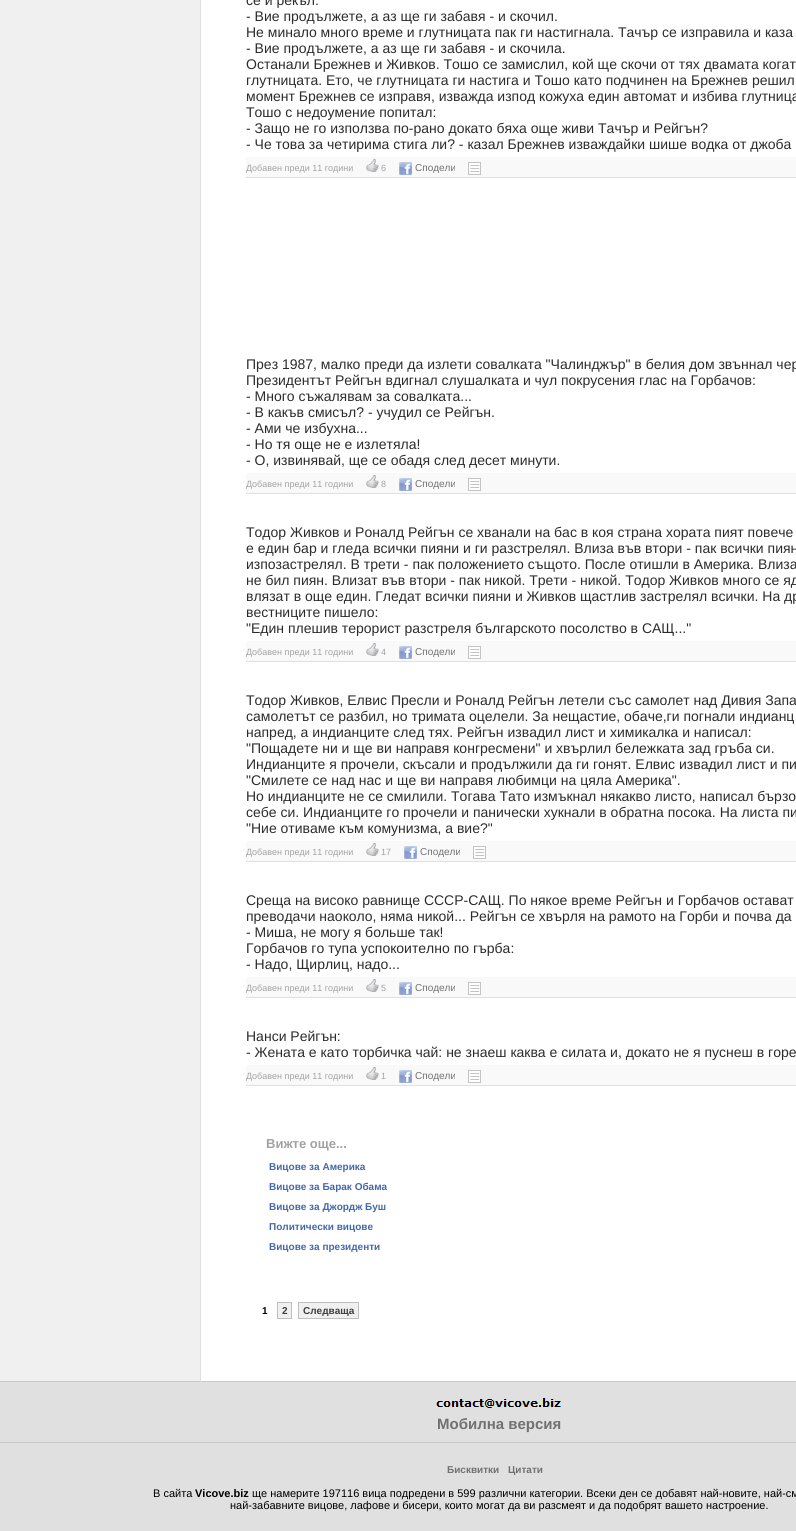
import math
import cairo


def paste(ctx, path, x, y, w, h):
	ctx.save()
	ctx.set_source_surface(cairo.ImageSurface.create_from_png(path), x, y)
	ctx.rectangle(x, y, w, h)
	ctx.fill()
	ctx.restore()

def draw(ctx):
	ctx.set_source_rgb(1, 1, 1)
	ctx.paint()
	ctx.set_source_rgb(0.941, 0.941, 0.941)
	ctx.rectangle(0, 0, 200, 1381)
	ctx.fill()
	ctx.set_source_rgb(0.788, 0.788, 0.788)
	ctx.rectangle(0, 1381, 796, 1)
	ctx.fill()
	ctx.set_source_rgb(0.878, 0.878, 0.878)
	ctx.rectangle(200, 0, 1, 1382)
	ctx.fill()
	ctx.select_font_face('Liberation Sans')
	ctx.set_font_size(14)
	ctx.set_source_rgb(0.173, 0.173, 0.173)
	for x, y, s in [
		(246, 5, 'се и рекъл:'),
		(246, 21, '- Вие продължете, а аз ще ги забавя - и скочил.'),
		(246, 37, 'Не минало много време и глутницата пак ги настигнала. Тачър се изправила и каза'),
		(246, 53, '- Вие продължете, а аз ще ги забавя - и скочила.'),
		(246, 69, 'Останали Брежнев и Живков. Тошо се замислил, кой ще скочи от тях двамата когат'),
		(246, 85, 'глутницата. Ето, че глутницата ги настига и Тошо като подчинен на Брежнев решил'),
		(246, 101, 'момент Брежнев се изправя, изважда изпод кожуха един автомат и избива глутница'),
		(246, 117, 'Тошо с недоумение попитал:'),
		(246, 133, '- Защо не го използва по-рано докато бяха още живи Тачър и Рейгън?'),
		(246, 149, '- Че това за четирима стига ли? - казал Брежнев изваждайки шише водка от джоба'),
	]:
		ctx.move_to(x, y)
		ctx.show_text(s)
	ctx.set_source_rgb(0.976, 0.976, 0.976)
	ctx.rectangle(246, 157, 550, 20)
	ctx.fill()
	ctx.set_source_rgb(0.878, 0.878, 0.878)
	ctx.rectangle(246, 177, 550, 1)
	ctx.fill()
	ctx.set_font_size(9)
	ctx.set_source_rgb(0.635, 0.635, 0.635)
	ctx.move_to(246, 171)
	ctx.show_text('Добавен преди 11 години')
	paste(ctx, 'media/1.png', 366, 159, 13, 13)
	ctx.move_to(381, 171)
	ctx.show_text('6')
	paste(ctx, 'media/2.png', 399, 162, 13, 13)
	ctx.set_font_size(10)
	ctx.set_source_rgb(0.443, 0.443, 0.443)
	ctx.move_to(415, 171)
	ctx.show_text('Сподели')
	paste(ctx, 'media/3.png', 468, 162, 13, 13)
	ctx.set_font_size(14)
	ctx.set_source_rgb(0.173, 0.173, 0.173)
	for x, y, s in [
		(246, 369, 'През 1987, малко преди да излети совалката "Чалинджър" в белия дом звъннал чер'),
		(246, 385, 'Президентът Рейгън вдигнал слушалката и чул покрусения глас на Горбачов:'),
		(246, 401, '- Много съжалявам за совалката...'),
		(246, 417, '- В какъв смисъл? - учудил се Рейгън.'),
		(246, 433, '- Ами че избухна...'),
		(246, 449, '- Но тя още не е излетяла!'),
		(246, 465, '- О, извинявай, ще се обадя след десет минути.'),
	]:
		ctx.move_to(x, y)
		ctx.show_text(s)
	ctx.set_source_rgb(0.976, 0.976, 0.976)
	ctx.rectangle(246, 473, 550, 20)
	ctx.fill()
	ctx.set_source_rgb(0.878, 0.878, 0.878)
	ctx.rectangle(246, 493, 550, 1)
	ctx.fill()
	ctx.set_font_size(9)
	ctx.set_source_rgb(0.635, 0.635, 0.635)
	ctx.move_to(246, 487)
	ctx.show_text('Добавен преди 11 години')
	paste(ctx, 'media/1.png', 366, 475, 13, 13)
	ctx.move_to(381, 487)
	ctx.show_text('8')
	paste(ctx, 'media/2.png', 399, 478, 13, 13)
	ctx.set_font_size(10)
	ctx.set_source_rgb(0.443, 0.443, 0.443)
	ctx.move_to(415, 487)
	ctx.show_text('Сподели')
	paste(ctx, 'media/3.png', 468, 478, 13, 13)
	ctx.set_font_size(14)
	ctx.set_source_rgb(0.173, 0.173, 0.173)
	for x, y, s in [
		(246, 537, 'Тодор Живков и Роналд Рейгън се хванали на бас в коя страна хората пият повече'),
		(246, 553, 'е един бар и гледа всички пияни и ги разстрелял. Влиза във втори - пак всички пиян'),
		(246, 569, 'изпозастрелял. В трети - пак положението същото. После отишли в Америка. Влиза'),
		(246, 585, 'не бил пиян. Влизат във втори - пак никой. Трети - никой. Тодор Живков много се яд'),
		(246, 601, 'влязат в още един. Гледат всички пияни и Живков щастлив застрелял всички. На др'),
		(246, 617, 'вестниците пишело:'),
		(246, 633, '"Един плешив терорист разстреля българското посолство в САЩ..."'),
	]:
		ctx.move_to(x, y)
		ctx.show_text(s)
	ctx.set_source_rgb(0.976, 0.976, 0.976)
	ctx.rectangle(246, 641, 550, 20)
	ctx.fill()
	ctx.set_source_rgb(0.878, 0.878, 0.878)
	ctx.rectangle(246, 661, 550, 1)
	ctx.fill()
	ctx.set_font_size(9)
	ctx.set_source_rgb(0.635, 0.635, 0.635)
	ctx.move_to(246, 655)
	ctx.show_text('Добавен преди 11 години')
	paste(ctx, 'media/1.png', 366, 643, 13, 13)
	ctx.move_to(381, 655)
	ctx.show_text('4')
	paste(ctx, 'media/2.png', 399, 646, 13, 13)
	ctx.set_font_size(10)
	ctx.set_source_rgb(0.443, 0.443, 0.443)
	ctx.move_to(415, 655)
	ctx.show_text('Сподели')
	paste(ctx, 'media/3.png', 468, 646, 13, 13)
	ctx.set_font_size(14)
	ctx.set_source_rgb(0.173, 0.173, 0.173)
	for x, y, s in [
		(246, 705, 'Тодор Живков, Елвис Пресли и Роналд Рейгън летели със самолет над Дивия Запа'),
		(246, 721, 'самолетът се разбил, но тримата оцелели. За нещастие, обаче,ги погнали индианц'),
		(246, 737, 'напред, а индианците след тях. Рейгън извадил лист и химикалка и написал:'),
		(246, 753, '"Пощадете ни и ще ви направя конгресмени" и хвърлил бележката зад гръба си.'),
		(246, 769, 'Индианците я прочели, скъсали и продължили да ги гонят. Елвис извадил лист и пи'),
		(246, 785, '"Смилете се над нас и ще ви направя любимци на цяла Америка".'),
		(246, 801, 'Но индианците не се смилили. Тогава Тато измъкнал някакво листо, написал бързо'),
		(246, 817, 'себе си. Индианците го прочели и панически хукнали в обратна посока. На листа пи'),
		(246, 833, '"Ние отиваме към комунизма, а вие?"'),
	]:
		ctx.move_to(x, y)
		ctx.show_text(s)
	ctx.set_source_rgb(0.976, 0.976, 0.976)
	ctx.rectangle(246, 841, 550, 20)
	ctx.fill()
	ctx.set_source_rgb(0.878, 0.878, 0.878)
	ctx.rectangle(246, 861, 550, 1)
	ctx.fill()
	ctx.set_font_size(9)
	ctx.set_source_rgb(0.635, 0.635, 0.635)
	ctx.move_to(246, 855)
	ctx.show_text('Добавен преди 11 години')
	paste(ctx, 'media/1.png', 366, 843, 13, 13)
	ctx.move_to(381, 855)
	ctx.show_text('17')
	paste(ctx, 'media/2.png', 404, 846, 13, 13)
	ctx.set_font_size(10)
	ctx.set_source_rgb(0.443, 0.443, 0.443)
	ctx.move_to(420, 855)
	ctx.show_text('Сподели')
	paste(ctx, 'media/3.png', 473, 846, 13, 13)
	ctx.set_font_size(14)
	ctx.set_source_rgb(0.173, 0.173, 0.173)
	for x, y, s in [
		(246, 905, 'Среща на високо равнище СССР-САЩ. По някое време Рейгън и Горбачов остават'),
		(246, 921, 'преводачи наоколо, няма никой... Рейгън се хвърля на рамото на Горби и почва да'),
		(246, 937, '- Миша, не могу я больше так!'),
		(246, 953, 'Горбачов го тупа успокоително по гърба:'),
		(246, 969, '- Надо, Щирлиц, надо...'),
	]:
		ctx.move_to(x, y)
		ctx.show_text(s)
	ctx.set_source_rgb(0.976, 0.976, 0.976)
	ctx.rectangle(246, 977, 550, 20)
	ctx.fill()
	ctx.set_source_rgb(0.878, 0.878, 0.878)
	ctx.rectangle(246, 997, 550, 1)
	ctx.fill()
	ctx.set_font_size(9)
	ctx.set_source_rgb(0.635, 0.635, 0.635)
	ctx.move_to(246, 991)
	ctx.show_text('Добавен преди 11 години')
	paste(ctx, 'media/1.png', 366, 979, 13, 13)
	ctx.move_to(381, 991)
	ctx.show_text('5')
	paste(ctx, 'media/2.png', 399, 982, 13, 13)
	ctx.set_font_size(10)
	ctx.set_source_rgb(0.443, 0.443, 0.443)
	ctx.move_to(415, 991)
	ctx.show_text('Сподели')
	paste(ctx, 'media/3.png', 468, 982, 13, 13)
	ctx.set_font_size(14)
	ctx.set_source_rgb(0.173, 0.173, 0.173)
	ctx.move_to(246, 1041)
	ctx.show_text('Нанси Рейгън:')
	ctx.move_to(246, 1057)
	ctx.show_text('- Жената е като торбичка чай: не знаеш каква е силата и, докато не я пуснеш в горе')
	ctx.set_source_rgb(0.976, 0.976, 0.976)
	ctx.rectangle(246, 1065, 550, 20)
	ctx.fill()
	ctx.set_source_rgb(0.878, 0.878, 0.878)
	ctx.rectangle(246, 1085, 550, 1)
	ctx.fill()
	ctx.set_font_size(9)
	ctx.set_source_rgb(0.635, 0.635, 0.635)
	ctx.move_to(246, 1079)
	ctx.show_text('Добавен преди 11 години')
	paste(ctx, 'media/1.png', 366, 1067, 13, 13)
	ctx.move_to(381, 1079)
	ctx.show_text('1')
	paste(ctx, 'media/2.png', 399, 1070, 13, 13)
	ctx.set_font_size(10)
	ctx.set_source_rgb(0.443, 0.443, 0.443)
	ctx.move_to(415, 1079)
	ctx.show_text('Сподели')
	paste(ctx, 'media/3.png', 468, 1070, 13, 13)
	ctx.select_font_face('Liberation Sans', cairo.FONT_SLANT_NORMAL, cairo.FONT_WEIGHT_BOLD)
	ctx.set_font_size(13)
	ctx.set_source_rgb(0.635, 0.635, 0.635)
	ctx.move_to(266, 1148)
	ctx.show_text('Вижте още...')
	ctx.set_font_size(10)
	ctx.set_source_rgb(0.263, 0.404, 0.667)
	for x, y, s in [
		(269, 1170, 'Вицове за Америка'),
		(269, 1190, 'Вицове за Барак Обама'),
		(269, 1210, 'Вицове за Джордж Буш'),
		(269, 1230, 'Политически вицове'),
		(269, 1250, 'Вицове за президенти'),
	]:
		ctx.move_to(x, y)
		ctx.show_text(s)
	ctx.set_source_rgb(0, 0, 0)
	ctx.move_to(262, 1314)
	ctx.show_text('1')
	ctx.set_source_rgb(0.941, 0.941, 0.941)
	ctx.rectangle(277.5, 1302.5, 14, 16)
	ctx.fill_preserve()
	ctx.set_source_rgb(0.749, 0.749, 0.749)
	ctx.set_line_width(1)
	ctx.stroke()
	ctx.set_source_rgb(0.243, 0.243, 0.243)
	ctx.move_to(282, 1314)
	ctx.show_text('2')
	ctx.set_source_rgb(0.941, 0.941, 0.941)
	ctx.rectangle(298.5, 1302.5, 60, 16)
	ctx.fill_preserve()
	ctx.set_source_rgb(0.749, 0.749, 0.749)
	ctx.stroke()
	ctx.set_source_rgb(0.243, 0.243, 0.243)
	ctx.move_to(303, 1314)
	ctx.show_text('Следваща')
	ctx.set_source_rgb(0.878, 0.878, 0.878)
	ctx.rectangle(0, 1382, 796, 149)
	ctx.fill()
	paste(ctx, 'media/4.png', 436, 1398, 125, 10)
	ctx.set_font_size(15)
	ctx.set_source_rgb(0.443, 0.443, 0.443)
	ctx.move_to(437, 1429)
	ctx.show_text('Мобилна версия')
	ctx.set_source_rgb(0.788, 0.788, 0.788)
	ctx.rectangle(0, 1442, 796, 1)
	ctx.fill()
	ctx.set_font_size(10)
	ctx.set_source_rgb(0.443, 0.443, 0.443)
	ctx.move_to(447, 1473)
	ctx.show_text('Бисквитки')
	ctx.move_to(508, 1473)
	ctx.show_text('Цитати')
	ctx.select_font_face('Liberation Sans')
	ctx.set_font_size(11)
	ctx.set_source_rgb(0, 0, 0)
	ctx.move_to(153, 1497)
	ctx.show_text('В сайта')
	ctx.select_font_face('Liberation Sans', cairo.FONT_SLANT_NORMAL, cairo.FONT_WEIGHT_BOLD)
	ctx.move_to(195, 1497)
	ctx.show_text('Vicove.biz')
	ctx.select_font_face('Liberation Sans')
	ctx.move_to(252, 1497)
	ctx.show_text('ще намерите 197116 вица подредени в 599 различни категории. Всеки ден се добавят най-новите, най-см')
	ctx.move_to(230, 1509)
	ctx.show_text('най-забавните вицове, лафове и бисери, които могат да ви разсмеят и да подобрят вашето настроение.')


surface = cairo.ImageSurface(cairo.FORMAT_RGB24, 796, 1531)
ctx = cairo.Context(surface)
options = cairo.FontOptions()
options.set_hint_metrics(cairo.HINT_METRICS_OFF)
options.set_hint_style(cairo.HINT_STYLE_NONE)
ctx.set_font_options(options)
ctx.set_miter_limit(4)
draw(ctx)
surface.write_to_png('image.png')
